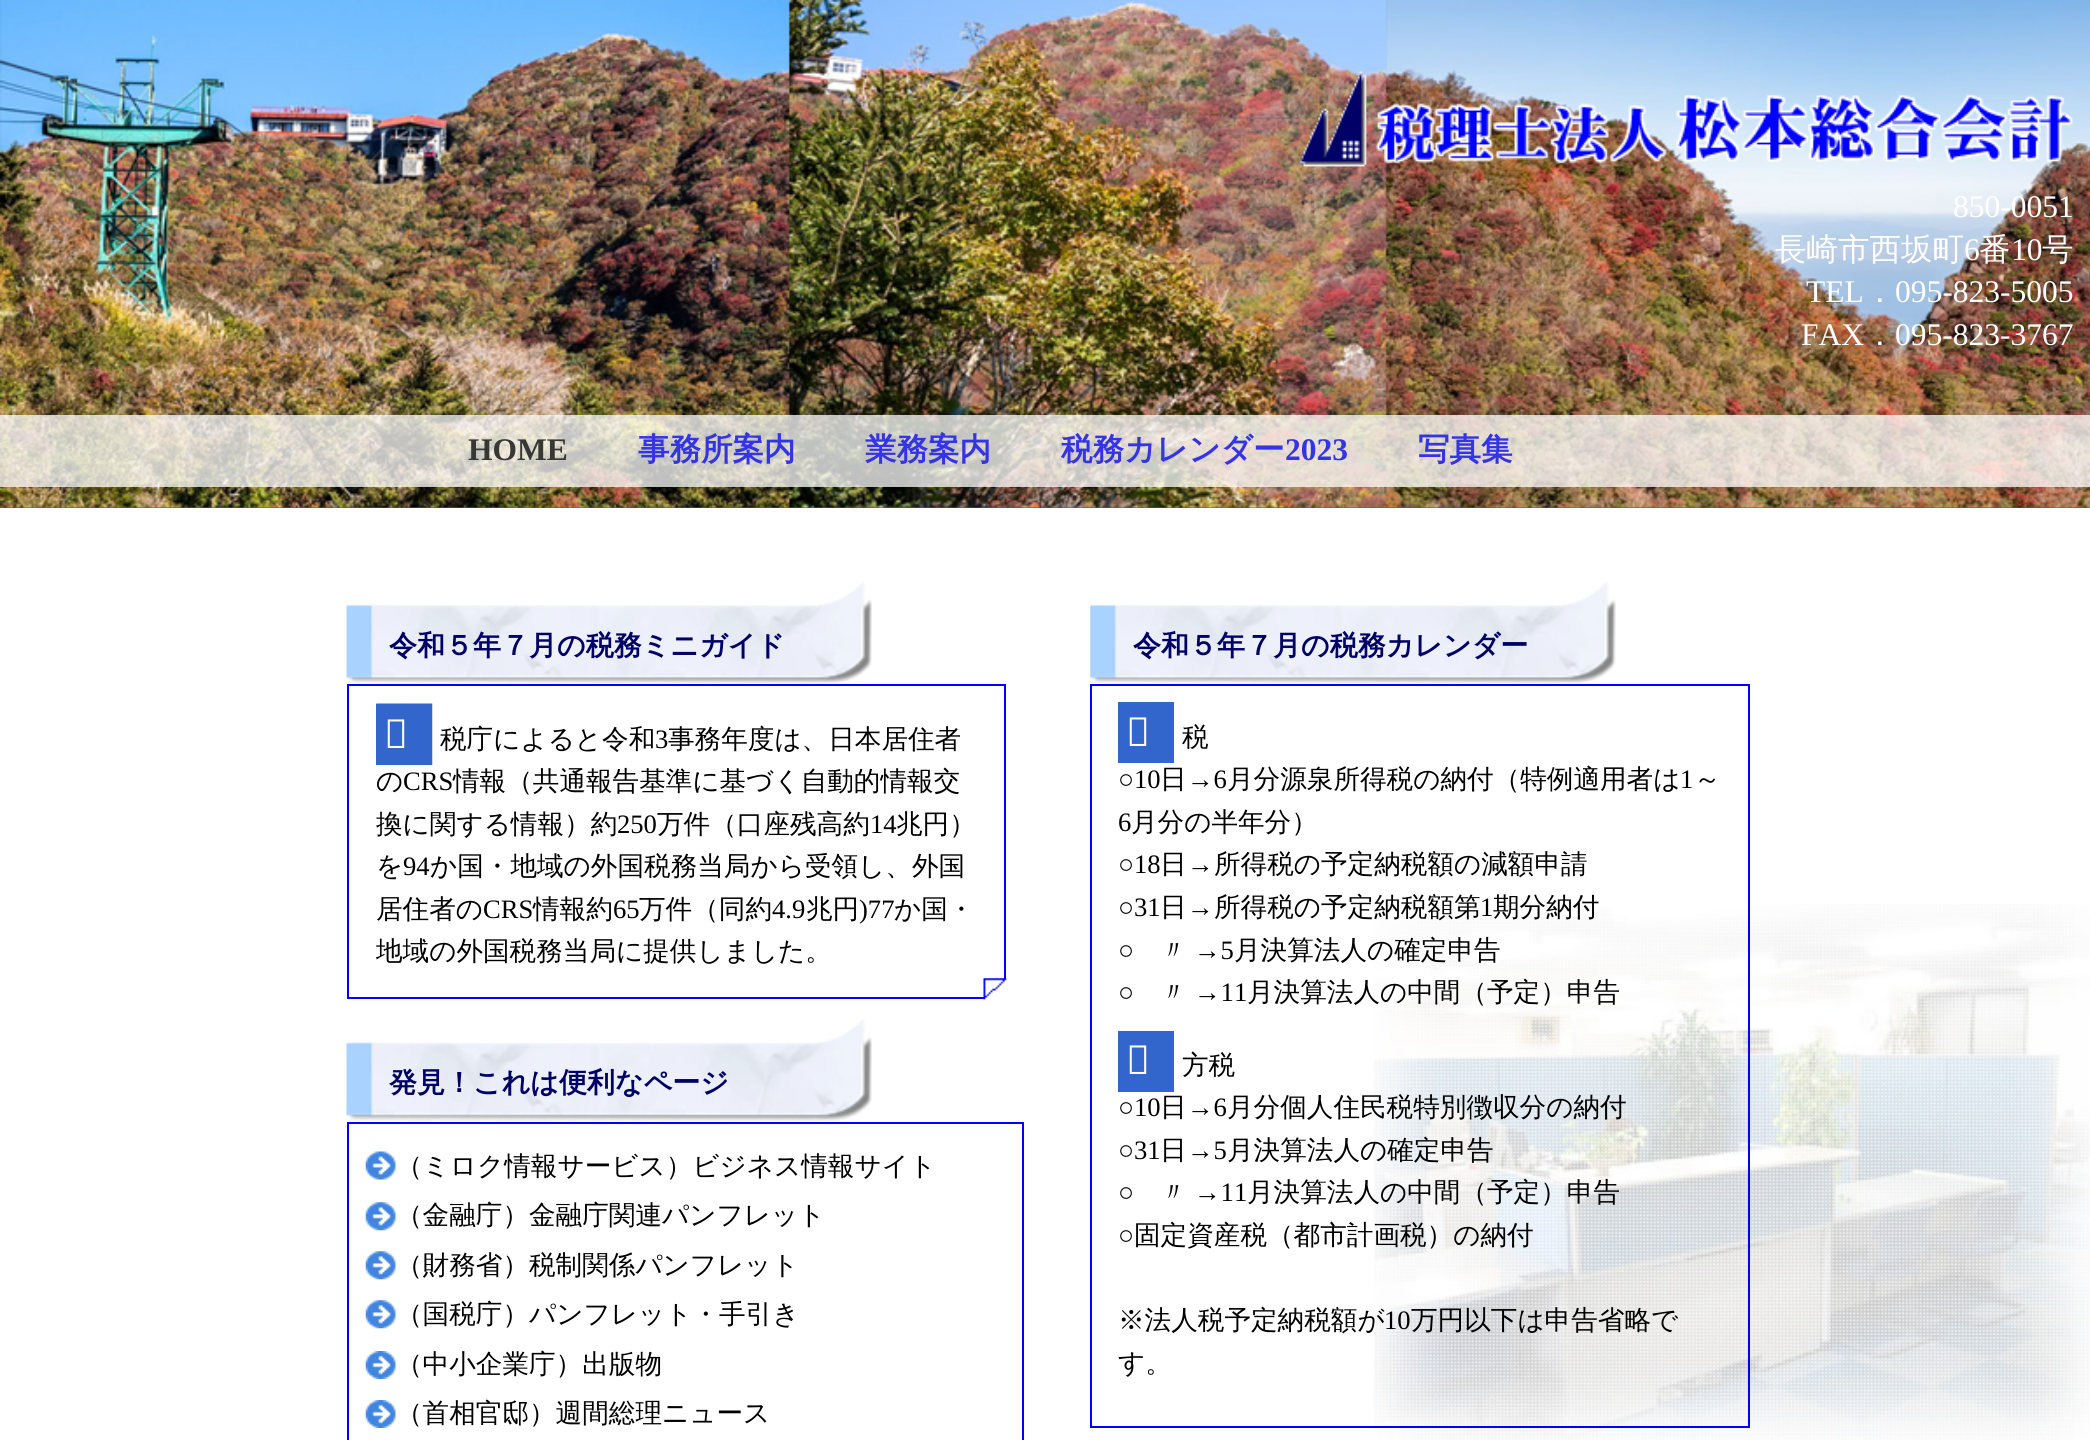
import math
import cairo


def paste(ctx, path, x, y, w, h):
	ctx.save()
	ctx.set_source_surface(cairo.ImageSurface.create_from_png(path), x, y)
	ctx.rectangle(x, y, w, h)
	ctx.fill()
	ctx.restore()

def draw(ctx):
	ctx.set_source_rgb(1, 1, 1)
	ctx.paint()
	paste(ctx, 'media/1.png', 1374, 904, 716, 536)
	ctx.set_source_rgb(0.157, 0.424, 0.678)
	ctx.rectangle(0, 507, 2090, 1)
	ctx.fill()
	paste(ctx, 'media/2.png', 0, 0, 2090, 508)
	paste(ctx, 'media/3.png', 1299, 71, 774, 96)
	ctx.select_font_face('Liberation Serif')
	ctx.set_font_size(31.5)
	ctx.set_source_rgb(1, 1, 1)
	ctx.move_to(1953, 217)
	ctx.show_text('850-0051')
	ctx.select_font_face('WenQuanYi Zen Hei Medium')
	ctx.move_to(1775, 260)
	ctx.show_text('長崎市西坂町')
	ctx.select_font_face('Liberation Serif')
	ctx.move_to(1964, 260)
	ctx.show_text('6')
	ctx.select_font_face('WenQuanYi Zen Hei Medium')
	ctx.move_to(1979, 260)
	ctx.show_text('番')
	ctx.select_font_face('Liberation Serif')
	ctx.move_to(2011, 260)
	ctx.show_text('10')
	ctx.select_font_face('WenQuanYi Zen Hei Medium')
	ctx.move_to(2042, 260)
	ctx.show_text('号')
	ctx.select_font_face('Liberation Serif')
	ctx.move_to(1806, 302)
	ctx.show_text('TEL')
	ctx.select_font_face('WenQuanYi Zen Hei Medium')
	ctx.move_to(1864, 302)
	ctx.show_text('．')
	ctx.select_font_face('Liberation Serif')
	ctx.move_to(1895, 302)
	ctx.show_text('095-823-5005')
	ctx.move_to(1801, 345)
	ctx.show_text('FAX')
	ctx.select_font_face('WenQuanYi Zen Hei Medium')
	ctx.move_to(1864, 345)
	ctx.show_text('．')
	ctx.select_font_face('Liberation Serif')
	ctx.move_to(1895, 345)
	ctx.show_text('095-823-3767')
	ctx.set_source_rgba(1, 1, 1, 0.75)
	ctx.rectangle(0, 415, 2090, 72)
	ctx.fill()
	ctx.select_font_face('Liberation Serif', cairo.FONT_SLANT_NORMAL, cairo.FONT_WEIGHT_BOLD)
	ctx.set_source_rgb(0.216, 0.216, 0.204)
	ctx.move_to(468, 460)
	ctx.show_text('HOME')
	ctx.select_font_face('WenQuanYi Zen Hei', cairo.FONT_SLANT_NORMAL, cairo.FONT_WEIGHT_BOLD)
	ctx.set_source_rgb(0.208, 0.204, 0.894)
	for x, y, s in [
		(638, 460, '事務所案内'),
		(865, 460, '業務案内'),
		(1061, 460, '税務カレンダー'),
	]:
		ctx.move_to(x, y)
		ctx.show_text(s)
	ctx.select_font_face('Liberation Serif', cairo.FONT_SLANT_NORMAL, cairo.FONT_WEIGHT_BOLD)
	ctx.move_to(1285, 460)
	ctx.show_text('2023')
	ctx.select_font_face('WenQuanYi Zen Hei', cairo.FONT_SLANT_NORMAL, cairo.FONT_WEIGHT_BOLD)
	ctx.move_to(1418, 460)
	ctx.show_text('写真集')
	paste(ctx, 'media/4.png', 346, 581, 526, 103)
	ctx.set_font_size(28)
	ctx.set_source_rgb(0, 0, 0.4)
	ctx.move_to(389, 655)
	ctx.show_text('令和５年７月の税務ミニガイド')
	ctx.rectangle(348, 685, 657, 313)
	ctx.set_source_rgb(0, 0, 1)
	ctx.stroke()
	paste(ctx, 'media/5.png', 376, 703, 631, 297)
	ctx.set_source_rgb(0.2, 0.4, 0.8)
	ctx.rectangle(376, 704, 56, 61)
	ctx.fill()
	ctx.select_font_face('Noto Sans')
	ctx.set_font_size(40)
	ctx.set_source_rgb(1, 1, 1)
	ctx.move_to(384, 748)
	ctx.show_text('国')
	ctx.select_font_face('WenQuanYi Zen Hei Medium')
	ctx.set_font_size(26.6)
	ctx.set_source_rgb(0, 0, 0)
	ctx.move_to(440, 748)
	ctx.show_text('税庁によると令和')
	ctx.select_font_face('Liberation Serif')
	ctx.move_to(655, 748)
	ctx.show_text('3')
	ctx.select_font_face('WenQuanYi Zen Hei Medium')
	ctx.move_to(668, 748)
	ctx.show_text('事務年度は、日本居住者')
	ctx.move_to(376, 790)
	ctx.show_text('の')
	ctx.select_font_face('Liberation Serif')
	ctx.move_to(403, 790)
	ctx.show_text('CRS')
	ctx.select_font_face('WenQuanYi Zen Hei Medium')
	ctx.move_to(453, 790)
	ctx.show_text('情報（共通報告基準に基づく自動的情報交')
	ctx.move_to(376, 833)
	ctx.show_text('換に関する情報）約')
	ctx.select_font_face('Liberation Serif')
	ctx.move_to(617, 833)
	ctx.show_text('250')
	ctx.select_font_face('WenQuanYi Zen Hei Medium')
	ctx.move_to(657, 833)
	ctx.show_text('万件（口座残高約')
	ctx.select_font_face('Liberation Serif')
	ctx.move_to(870, 833)
	ctx.show_text('14')
	ctx.select_font_face('WenQuanYi Zen Hei Medium')
	ctx.move_to(896, 833)
	ctx.show_text('兆円）')
	ctx.move_to(376, 875)
	ctx.show_text('を')
	ctx.select_font_face('Liberation Serif')
	ctx.move_to(403, 875)
	ctx.show_text('94')
	ctx.select_font_face('WenQuanYi Zen Hei Medium')
	ctx.move_to(430, 875)
	ctx.show_text('か国・地域の外国税務当局から受領し、外国')
	ctx.move_to(376, 918)
	ctx.show_text('居住者の')
	ctx.select_font_face('Liberation Serif')
	ctx.move_to(483, 918)
	ctx.show_text('CRS')
	ctx.select_font_face('WenQuanYi Zen Hei Medium')
	ctx.move_to(533, 918)
	ctx.show_text('情報約')
	ctx.select_font_face('Liberation Serif')
	ctx.move_to(613, 918)
	ctx.show_text('65')
	ctx.select_font_face('WenQuanYi Zen Hei Medium')
	ctx.move_to(639, 918)
	ctx.show_text('万件（同約')
	ctx.select_font_face('Liberation Serif')
	ctx.move_to(772, 918)
	ctx.show_text('4.9')
	ctx.select_font_face('WenQuanYi Zen Hei Medium')
	ctx.move_to(806, 918)
	ctx.show_text('兆円')
	ctx.select_font_face('Liberation Serif')
	ctx.move_to(859, 918)
	ctx.show_text(')77')
	ctx.select_font_face('WenQuanYi Zen Hei Medium')
	ctx.move_to(894, 918)
	ctx.show_text('か国・')
	ctx.move_to(376, 960)
	ctx.show_text('地域の外国税務当局に提供しました。')
	paste(ctx, 'media/6.png', 346, 1018, 526, 104)
	ctx.select_font_face('WenQuanYi Zen Hei', cairo.FONT_SLANT_NORMAL, cairo.FONT_WEIGHT_BOLD)
	ctx.set_font_size(28)
	ctx.set_source_rgb(0, 0, 0.4)
	ctx.move_to(389, 1092)
	ctx.show_text('発見！これは便利なページ')
	ctx.rectangle(348, 1123, 675, 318)
	ctx.set_source_rgb(0, 0, 1)
	ctx.stroke()
	paste(ctx, 'media/7.png', 365, 1151, 31, 29)
	ctx.select_font_face('WenQuanYi Zen Hei Medium')
	ctx.set_font_size(26.6)
	ctx.set_source_rgb(0, 0, 0)
	ctx.move_to(396, 1175)
	ctx.show_text('（ミロク情報サービス）ビジネス情報サイト')
	paste(ctx, 'media/8.png', 365, 1202, 31, 29)
	ctx.move_to(396, 1224)
	ctx.show_text('（金融庁）金融庁関連パンフレット')
	paste(ctx, 'media/8.png', 365, 1251, 31, 29)
	ctx.move_to(396, 1274)
	ctx.show_text('（財務省）税制関係パンフレット')
	paste(ctx, 'media/8.png', 365, 1300, 31, 29)
	ctx.move_to(396, 1323)
	ctx.show_text('（国税庁）パンフレット・手引き')
	paste(ctx, 'media/9.png', 365, 1351, 31, 28)
	ctx.move_to(396, 1373)
	ctx.show_text('（中小企業庁）出版物')
	paste(ctx, 'media/9.png', 365, 1400, 31, 28)
	ctx.move_to(396, 1422)
	ctx.show_text('（首相官邸）週間総理ニュース')
	paste(ctx, 'media/10.png', 1090, 581, 526, 103)
	ctx.select_font_face('WenQuanYi Zen Hei', cairo.FONT_SLANT_NORMAL, cairo.FONT_WEIGHT_BOLD)
	ctx.set_font_size(28)
	ctx.set_source_rgb(0, 0, 0.4)
	ctx.move_to(1133, 655)
	ctx.show_text('令和５年７月の税務カレンダー')
	ctx.rectangle(1091, 685, 658, 742)
	ctx.set_source_rgb(0, 0, 1)
	ctx.stroke()
	ctx.set_source_rgb(0.2, 0.4, 0.8)
	ctx.rectangle(1118, 702, 56, 61)
	ctx.fill()
	ctx.select_font_face('Noto Sans')
	ctx.set_font_size(40)
	ctx.set_source_rgb(1, 1, 1)
	ctx.move_to(1126, 746)
	ctx.show_text('国')
	ctx.select_font_face('WenQuanYi Zen Hei Medium')
	ctx.set_font_size(26.6)
	ctx.set_source_rgb(0, 0, 0)
	ctx.move_to(1182, 746)
	ctx.show_text('税')
	ctx.select_font_face('Liberation Serif')
	ctx.move_to(1118, 788)
	ctx.show_text('○10')
	ctx.select_font_face('WenQuanYi Zen Hei Medium')
	ctx.move_to(1160, 788)
	ctx.show_text('日')
	ctx.select_font_face('Liberation Serif')
	ctx.move_to(1187, 788)
	ctx.show_text('→6')
	ctx.select_font_face('WenQuanYi Zen Hei Medium')
	ctx.move_to(1227, 788)
	ctx.show_text('月分源泉所得税の納付（特例適用者は')
	ctx.select_font_face('Liberation Serif')
	ctx.move_to(1680, 788)
	ctx.show_text('1')
	ctx.select_font_face('WenQuanYi Zen Hei Medium')
	ctx.move_to(1694, 788)
	ctx.show_text('～')
	ctx.select_font_face('Liberation Serif')
	ctx.move_to(1118, 831)
	ctx.show_text('6')
	ctx.select_font_face('WenQuanYi Zen Hei Medium')
	ctx.move_to(1131, 831)
	ctx.show_text('月分の半年分）')
	ctx.select_font_face('Liberation Serif')
	ctx.move_to(1118, 873)
	ctx.show_text('○18')
	ctx.select_font_face('WenQuanYi Zen Hei Medium')
	ctx.move_to(1160, 873)
	ctx.show_text('日')
	ctx.select_font_face('Liberation Serif')
	ctx.move_to(1187, 873)
	ctx.show_text('→')
	ctx.select_font_face('WenQuanYi Zen Hei Medium')
	ctx.move_to(1214, 873)
	ctx.show_text('所得税の予定納税額の減額申請')
	ctx.select_font_face('Liberation Serif')
	ctx.move_to(1118, 916)
	ctx.show_text('○31')
	ctx.select_font_face('WenQuanYi Zen Hei Medium')
	ctx.move_to(1160, 916)
	ctx.show_text('日')
	ctx.select_font_face('Liberation Serif')
	ctx.move_to(1187, 916)
	ctx.show_text('→')
	ctx.select_font_face('WenQuanYi Zen Hei Medium')
	ctx.move_to(1214, 916)
	ctx.show_text('所得税の予定納税額第')
	ctx.select_font_face('Liberation Serif')
	ctx.move_to(1480, 916)
	ctx.show_text('1')
	ctx.select_font_face('WenQuanYi Zen Hei Medium')
	ctx.move_to(1493, 916)
	ctx.show_text('期分納付')
	ctx.select_font_face('Liberation Serif')
	ctx.move_to(1118, 959)
	ctx.show_text('○')
	ctx.select_font_face('WenQuanYi Zen Hei Medium')
	ctx.move_to(1160, 959)
	ctx.show_text('〃')
	ctx.select_font_face('Liberation Serif')
	ctx.move_to(1194, 959)
	ctx.show_text('→5')
	ctx.select_font_face('WenQuanYi Zen Hei Medium')
	ctx.move_to(1234, 959)
	ctx.show_text('月決算法人の確定申告')
	ctx.select_font_face('Liberation Serif')
	ctx.move_to(1118, 1001)
	ctx.show_text('○')
	ctx.select_font_face('WenQuanYi Zen Hei Medium')
	ctx.move_to(1160, 1001)
	ctx.show_text('〃')
	ctx.select_font_face('Liberation Serif')
	ctx.move_to(1194, 1001)
	ctx.show_text('→11')
	ctx.select_font_face('WenQuanYi Zen Hei Medium')
	ctx.move_to(1247, 1001)
	ctx.show_text('月決算法人の中間（予定）申告')
	ctx.set_source_rgb(0.2, 0.4, 0.8)
	ctx.rectangle(1118, 1031, 56, 61)
	ctx.fill()
	ctx.select_font_face('Noto Sans')
	ctx.set_font_size(40)
	ctx.set_source_rgb(1, 1, 1)
	ctx.move_to(1126, 1074)
	ctx.show_text('地')
	ctx.select_font_face('WenQuanYi Zen Hei Medium')
	ctx.set_font_size(26.6)
	ctx.set_source_rgb(0, 0, 0)
	ctx.move_to(1182, 1074)
	ctx.show_text('方税')
	ctx.select_font_face('Liberation Serif')
	ctx.move_to(1118, 1116)
	ctx.show_text('○10')
	ctx.select_font_face('WenQuanYi Zen Hei Medium')
	ctx.move_to(1160, 1116)
	ctx.show_text('日')
	ctx.select_font_face('Liberation Serif')
	ctx.move_to(1187, 1116)
	ctx.show_text('→6')
	ctx.select_font_face('WenQuanYi Zen Hei Medium')
	ctx.move_to(1227, 1116)
	ctx.show_text('月分個人住民税特別徴収分の納付')
	ctx.select_font_face('Liberation Serif')
	ctx.move_to(1118, 1159)
	ctx.show_text('○31')
	ctx.select_font_face('WenQuanYi Zen Hei Medium')
	ctx.move_to(1160, 1159)
	ctx.show_text('日')
	ctx.select_font_face('Liberation Serif')
	ctx.move_to(1187, 1159)
	ctx.show_text('→5')
	ctx.select_font_face('WenQuanYi Zen Hei Medium')
	ctx.move_to(1227, 1159)
	ctx.show_text('月決算法人の確定申告')
	ctx.select_font_face('Liberation Serif')
	ctx.move_to(1118, 1201)
	ctx.show_text('○')
	ctx.select_font_face('WenQuanYi Zen Hei Medium')
	ctx.move_to(1160, 1201)
	ctx.show_text('〃')
	ctx.select_font_face('Liberation Serif')
	ctx.move_to(1194, 1201)
	ctx.show_text('→11')
	ctx.select_font_face('WenQuanYi Zen Hei Medium')
	ctx.move_to(1247, 1201)
	ctx.show_text('月決算法人の中間（予定）申告')
	ctx.select_font_face('Liberation Serif')
	ctx.move_to(1118, 1244)
	ctx.show_text('○')
	ctx.select_font_face('WenQuanYi Zen Hei Medium')
	ctx.move_to(1134, 1244)
	ctx.show_text('固定資産税（都市計画税）の納付')
	ctx.move_to(1118, 1329)
	ctx.show_text('※法人税予定納税額が')
	ctx.select_font_face('Liberation Serif')
	ctx.move_to(1384, 1329)
	ctx.show_text('10')
	ctx.select_font_face('WenQuanYi Zen Hei Medium')
	ctx.move_to(1411, 1329)
	ctx.show_text('万円以下は申告省略で')
	ctx.move_to(1118, 1372)
	ctx.show_text('す。')


surface = cairo.ImageSurface(cairo.FORMAT_RGB24, 2090, 1440)
ctx = cairo.Context(surface)
options = cairo.FontOptions()
options.set_hint_metrics(cairo.HINT_METRICS_OFF)
options.set_hint_style(cairo.HINT_STYLE_NONE)
ctx.set_font_options(options)
ctx.set_miter_limit(4)
draw(ctx)
surface.write_to_png('image.png')
